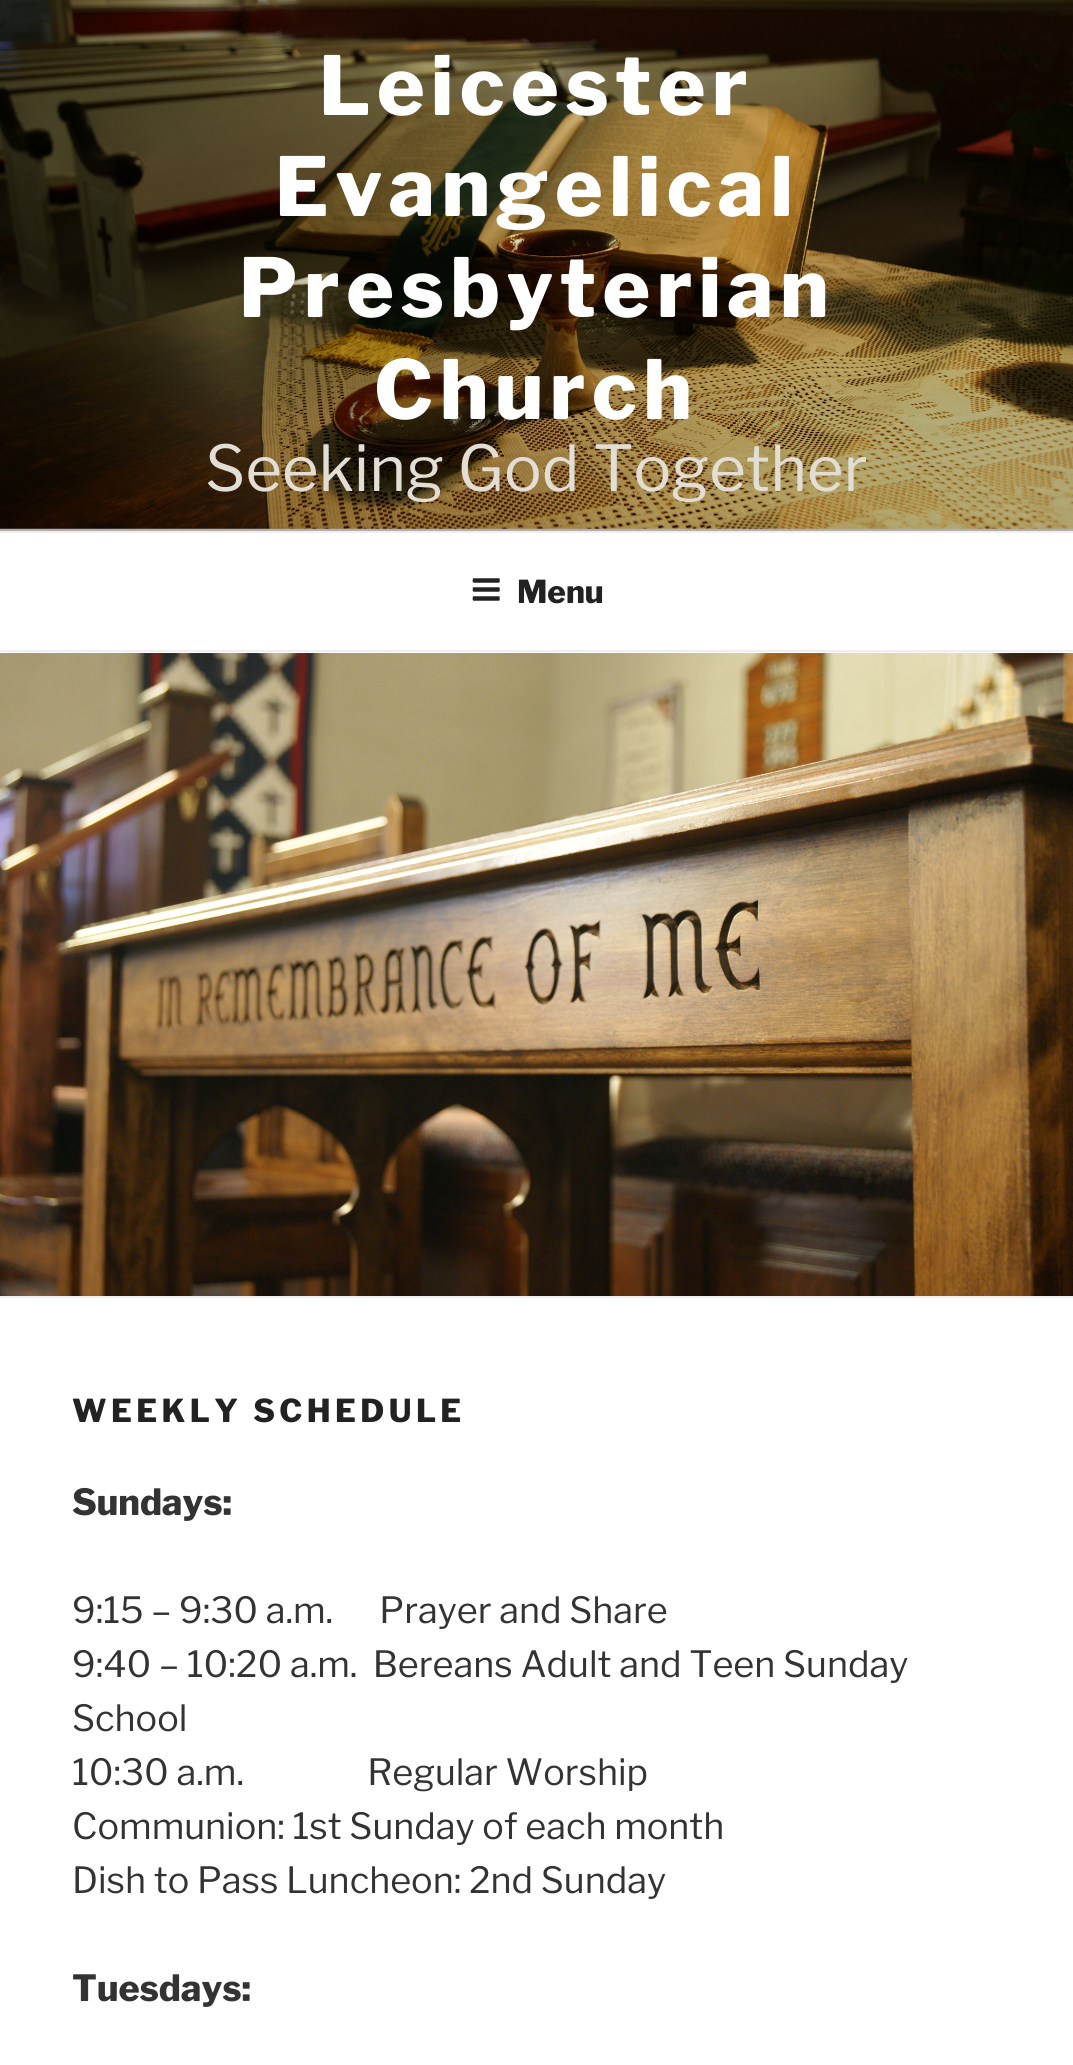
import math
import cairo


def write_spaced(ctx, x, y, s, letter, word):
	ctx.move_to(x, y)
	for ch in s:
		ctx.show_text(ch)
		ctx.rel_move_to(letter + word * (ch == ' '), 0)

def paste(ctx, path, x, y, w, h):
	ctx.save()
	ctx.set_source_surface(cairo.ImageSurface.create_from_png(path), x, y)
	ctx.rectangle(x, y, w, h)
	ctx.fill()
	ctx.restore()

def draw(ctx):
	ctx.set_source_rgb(1, 1, 1)
	ctx.paint()
	ctx.set_source_rgb(0.98, 0.98, 0.98)
	ctx.rectangle(0, 528, 1073, 3)
	ctx.fill()
	paste(ctx, 'media/1.png', 0, 0, 1073, 529)
	gradient = cairo.LinearGradient(537, 0, 537, 531)
	gradient.add_color_stop_rgba(0, 0, 0, 0, 0)
	gradient.add_color_stop_rgba(0.75, 0, 0, 0, 0.3)
	gradient.add_color_stop_rgba(1, 0, 0, 0, 0.3)
	ctx.set_source(gradient)
	ctx.rectangle(0, 32, 1073, 499)
	ctx.fill()
	ctx.select_font_face('Libre Franklin ExtraBold')
	ctx.set_font_size(81)
	ctx.set_source_rgb(1, 1, 1)
	for x, y, s in [
		(319, 115, 'Leicester'),
		(275, 216, 'Evangelical'),
		(239, 317, 'Presbyterian'),
		(374, 419, 'Church'),
	]:
		write_spaced(ctx, x, y, s, 6.5, 0)
	ctx.select_font_face('Libre Franklin')
	ctx.set_font_size(63)
	ctx.set_source_rgb(0.886, 0.871, 0.835)
	ctx.move_to(205, 491)
	ctx.show_text('Seeking God Together')
	ctx.set_source_rgb(0.933, 0.933, 0.933)
	ctx.rectangle(0, 531, 1073, 2)
	ctx.fill()
	ctx.rectangle(0, 650, 1073, 2)
	ctx.fill()
	paste(ctx, 'media/2.png', 472, 578, 28, 23)
	ctx.select_font_face('Libre Franklin ExtraBold')
	ctx.set_font_size(31.5)
	ctx.set_source_rgb(0.133, 0.133, 0.133)
	ctx.move_to(517, 603)
	ctx.show_text('Menu')
	ctx.set_source_rgb(0.933, 0.933, 0.933)
	ctx.rectangle(0, 1296, 1073, 2)
	ctx.fill()
	paste(ctx, 'media/3.png', 0, 653, 1073, 643)
	ctx.set_source_rgb(0.133, 0.133, 0.133)
	write_spaced(ctx, 72, 1422, 'WEEKLY SCHEDULE', 4.4, 0)
	ctx.set_font_size(36)
	ctx.set_source_rgb(0.2, 0.2, 0.2)
	ctx.move_to(72, 1515)
	ctx.show_text('Sundays:')
	ctx.select_font_face('Libre Franklin')
	for x, y, s in [
		(72, 1623, '9:15 – 9:30 a.m.      Prayer and Share'),
		(72, 1677, '9:40 – 10:20 a.m.  Bereans Adult and Teen Sunday'),
		(72, 1731, 'School'),
		(72, 1785, '10:30 a.m.                Regular Worship'),
		(72, 1839, 'Communion: 1st Sunday of each month'),
		(72, 1893, 'Dish to Pass Luncheon: 2nd Sunday'),
	]:
		ctx.move_to(x, y)
		ctx.show_text(s)
	ctx.select_font_face('Libre Franklin ExtraBold')
	ctx.move_to(72, 2001)
	ctx.show_text('Tuesdays:')


surface = cairo.ImageSurface(cairo.FORMAT_RGB24, 1073, 2065)
ctx = cairo.Context(surface)
options = cairo.FontOptions()
options.set_hint_metrics(cairo.HINT_METRICS_OFF)
options.set_hint_style(cairo.HINT_STYLE_NONE)
ctx.set_font_options(options)
ctx.set_miter_limit(4)
draw(ctx)
surface.write_to_png('image.png')
